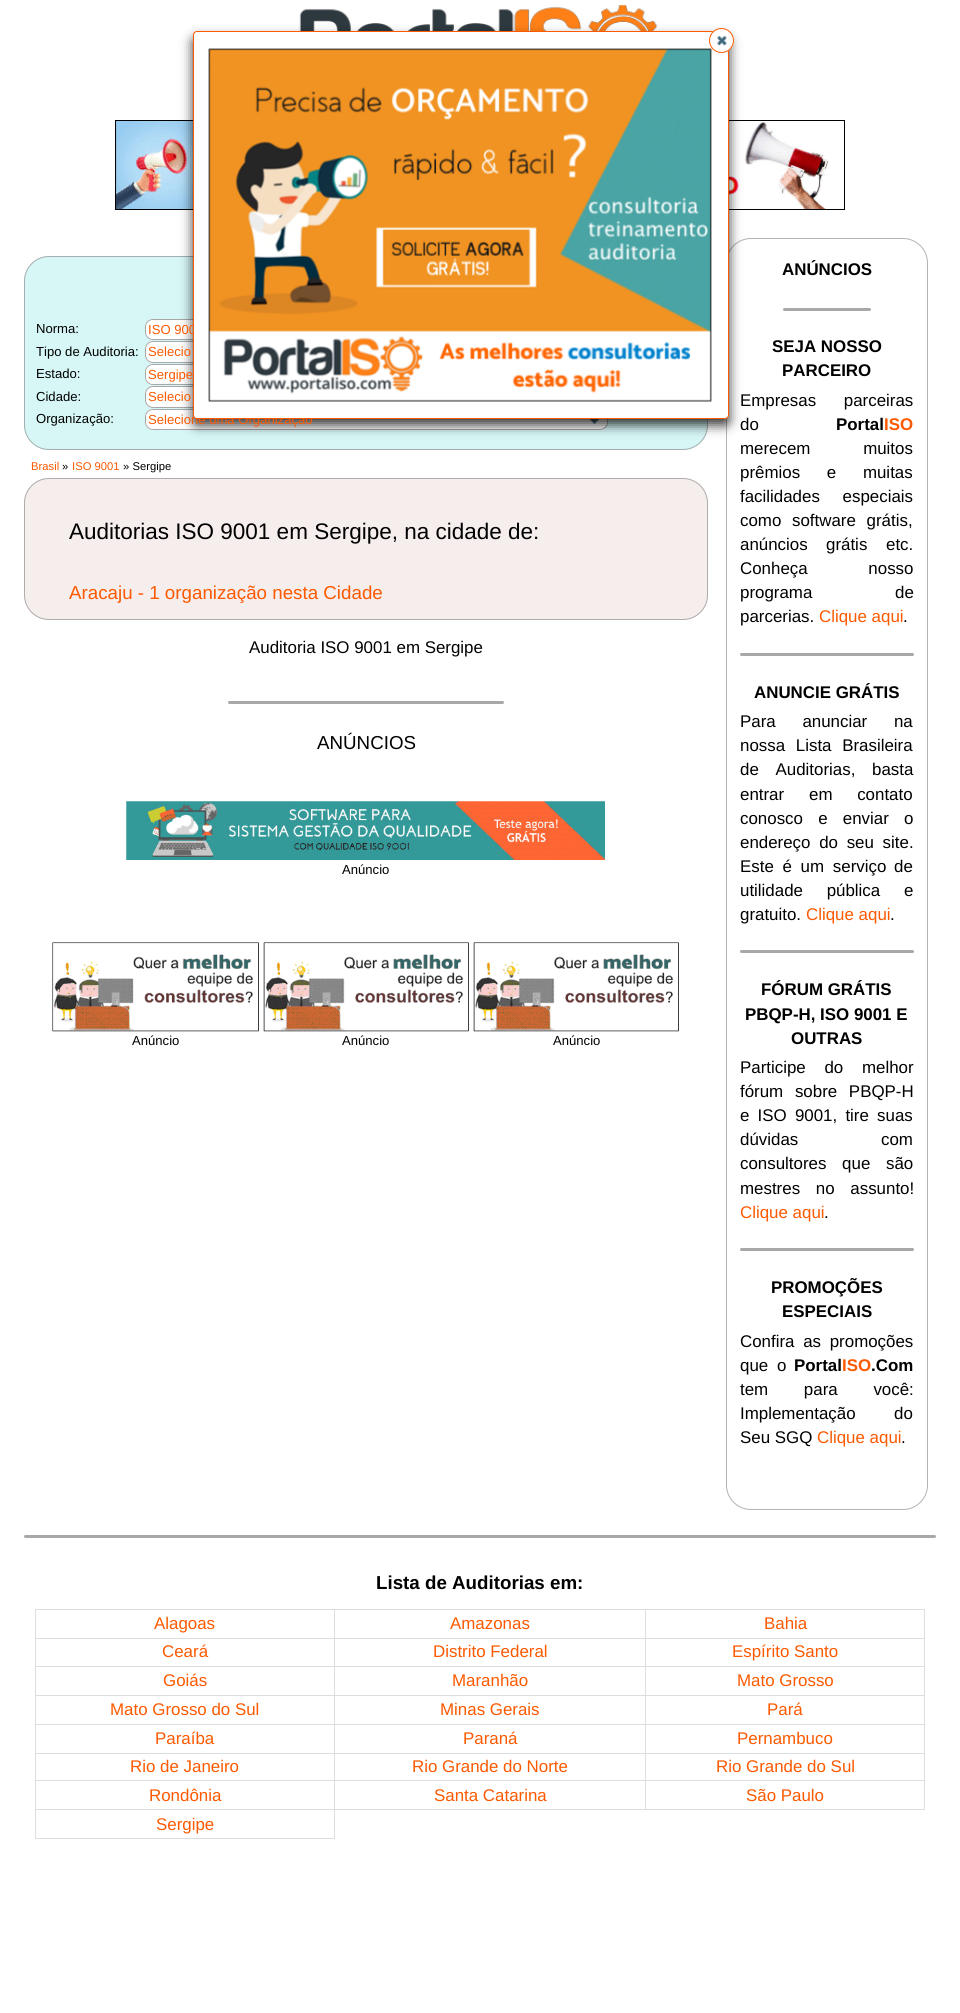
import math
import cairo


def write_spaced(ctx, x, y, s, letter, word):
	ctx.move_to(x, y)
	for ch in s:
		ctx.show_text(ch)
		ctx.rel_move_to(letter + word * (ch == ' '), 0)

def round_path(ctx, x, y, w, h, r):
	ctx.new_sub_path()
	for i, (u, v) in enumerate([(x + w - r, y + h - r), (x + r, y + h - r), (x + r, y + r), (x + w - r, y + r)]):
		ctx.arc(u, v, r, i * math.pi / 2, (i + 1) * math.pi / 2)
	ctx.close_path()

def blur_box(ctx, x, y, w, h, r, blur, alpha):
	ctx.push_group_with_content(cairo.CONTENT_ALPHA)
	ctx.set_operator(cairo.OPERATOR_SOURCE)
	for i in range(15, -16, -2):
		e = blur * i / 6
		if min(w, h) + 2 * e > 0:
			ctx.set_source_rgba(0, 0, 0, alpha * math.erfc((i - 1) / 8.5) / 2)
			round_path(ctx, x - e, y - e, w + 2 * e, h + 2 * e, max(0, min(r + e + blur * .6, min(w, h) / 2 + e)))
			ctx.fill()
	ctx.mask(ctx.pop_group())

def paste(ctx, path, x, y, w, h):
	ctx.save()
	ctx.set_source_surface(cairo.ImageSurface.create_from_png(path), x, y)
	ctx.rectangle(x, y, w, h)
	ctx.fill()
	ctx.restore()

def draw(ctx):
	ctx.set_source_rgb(1, 1, 1)
	ctx.paint()
	paste(ctx, 'media/1.png', 299, 5, 359, 26)
	paste(ctx, 'media/2.png', 115, 120, 730, 90)
	ctx.set_source_rgb(0.843, 0.961, 0.961)
	round_path(ctx, 24, 256, 684, 194, 25)
	ctx.fill()
	round_path(ctx, 24.5, 256.5, 683, 193, 24.5)
	ctx.set_source_rgba(0.502, 0.502, 0.502, 0.6)
	ctx.set_line_width(1)
	ctx.stroke()
	ctx.set_source_rgb(1, 1, 1)
	round_path(ctx, 145, 319, 438, 21, 8)
	ctx.fill()
	ctx.save()
	round_path(ctx, 145, 319, 438, 21, 8)
	ctx.clip()
	gradient = cairo.LinearGradient(146, 320, 146, 339)
	gradient.add_color_stop_rgba(0, 1, 1, 1, 0.8)
	gradient.add_color_stop_rgba(1, 1, 1, 1, 0)
	ctx.set_source(gradient)
	ctx.rectangle(145, 320, 9, 18)
	ctx.fill()
	ctx.restore()
	round_path(ctx, 145.5, 319.5, 437, 20, 7.5)
	ctx.set_source_rgb(0.659, 0.659, 0.659)
	ctx.stroke()
	ctx.set_source_rgb(1, 1, 1)
	round_path(ctx, 146, 320, 435, 19, 8)
	ctx.fill()
	round_path(ctx, 145, 341, 250, 22, 8)
	ctx.fill()
	ctx.save()
	round_path(ctx, 145, 341, 250, 22, 8)
	ctx.clip()
	gradient = cairo.LinearGradient(146, 361, 146, 380)
	gradient.add_color_stop_rgba(0, 1, 1, 1, 0.8)
	gradient.add_color_stop_rgba(1, 1, 1, 1, 0)
	ctx.set_source(gradient)
	ctx.rectangle(145, 361, 48, 2)
	ctx.fill()
	gradient = cairo.LinearGradient(146, 343, 146, 361)
	gradient.add_color_stop_rgba(0, 1, 1, 1, 0.8)
	gradient.add_color_stop_rgba(1, 1, 1, 1, 0)
	ctx.set_source(gradient)
	ctx.rectangle(145, 343, 9, 18)
	ctx.fill()
	ctx.restore()
	round_path(ctx, 145.5, 341.5, 249, 21, 7.5)
	ctx.set_source_rgb(0.659, 0.659, 0.659)
	ctx.stroke()
	ctx.set_source_rgb(1, 1, 1)
	round_path(ctx, 146, 343, 248, 18, 8)
	ctx.fill()
	round_path(ctx, 145, 364, 238, 21, 8)
	ctx.fill()
	ctx.save()
	round_path(ctx, 145, 364, 238, 21, 8)
	ctx.clip()
	gradient = cairo.LinearGradient(146, 365, 146, 384)
	gradient.add_color_stop_rgba(0, 1, 1, 1, 0.8)
	gradient.add_color_stop_rgba(1, 1, 1, 1, 0)
	ctx.set_source(gradient)
	ctx.rectangle(145, 365, 9, 18)
	ctx.fill()
	ctx.restore()
	round_path(ctx, 145.5, 364.5, 237, 20, 7.5)
	ctx.set_source_rgb(0.659, 0.659, 0.659)
	ctx.stroke()
	ctx.set_source_rgb(1, 1, 1)
	round_path(ctx, 146, 365, 235, 19, 8)
	ctx.fill()
	round_path(ctx, 145, 386, 250, 22, 8)
	ctx.fill()
	ctx.save()
	round_path(ctx, 145, 386, 250, 22, 8)
	ctx.clip()
	gradient = cairo.LinearGradient(146, 406, 146, 425)
	gradient.add_color_stop_rgba(0, 1, 1, 1, 0.8)
	gradient.add_color_stop_rgba(1, 1, 1, 1, 0)
	ctx.set_source(gradient)
	ctx.rectangle(145, 406, 48, 2)
	ctx.fill()
	gradient = cairo.LinearGradient(146, 388, 146, 406)
	gradient.add_color_stop_rgba(0, 1, 1, 1, 0.8)
	gradient.add_color_stop_rgba(1, 1, 1, 1, 0)
	ctx.set_source(gradient)
	ctx.rectangle(145, 388, 9, 18)
	ctx.fill()
	ctx.restore()
	round_path(ctx, 145.5, 386.5, 249, 21, 7.5)
	ctx.set_source_rgb(0.659, 0.659, 0.659)
	ctx.stroke()
	ctx.set_source_rgb(1, 1, 1)
	round_path(ctx, 146, 388, 248, 18, 8)
	ctx.fill()
	round_path(ctx, 145, 409, 463, 21, 8)
	ctx.fill()
	ctx.save()
	round_path(ctx, 145, 409, 463, 21, 8)
	ctx.clip()
	gradient = cairo.LinearGradient(146, 410, 146, 429)
	gradient.add_color_stop_rgba(0, 1, 1, 1, 0.8)
	gradient.add_color_stop_rgba(1, 1, 1, 1, 0)
	ctx.set_source(gradient)
	ctx.rectangle(145, 410, 463, 18)
	ctx.fill()
	ctx.restore()
	round_path(ctx, 145.5, 409.5, 462, 20, 7.5)
	ctx.set_source_rgb(0.659, 0.659, 0.659)
	ctx.stroke()
	ctx.set_source_rgb(1, 1, 1)
	round_path(ctx, 146, 410, 460, 19, 8)
	ctx.fill()
	paste(ctx, 'media/5.png', 589, 419, 10, 5)
	round_path(ctx, 726.5, 238.5, 201, 1271, 24.5)
	ctx.set_source_rgb(0.702, 0.702, 0.702)
	ctx.stroke()
	ctx.set_source_rgb(0, 0, 0)
	blur_box(ctx, 193, 38, 536, 387, 4, 6, 0.8)
	ctx.select_font_face('Liberation Sans')
	ctx.set_font_size(13.1)
	ctx.set_source_rgb(0.988, 0.349, 0)
	for x, y, s in [
		(148, 334, 'ISO 900'),
		(148, 379, 'Sergipe'),
		(148, 424, 'Selecione uma Organização'),
	]:
		ctx.move_to(x, y)
		ctx.show_text(s)
	ctx.set_source_rgb(1, 1, 1)
	round_path(ctx, 193.5, 31.5, 535, 387, 3.5)
	ctx.fill_preserve()
	ctx.set_source_rgb(0.988, 0.349, 0)
	ctx.stroke()
	paste(ctx, 'media/4.png', 208, 48, 504, 354)
	ctx.set_source_rgb(1, 1, 1)
	ctx.arc(721.5, 40.5, 12.5, 0, 2 * math.pi)
	ctx.fill()
	ctx.save()
	round_path(ctx, 709, 28, 25, 25, 12.5)
	ctx.clip()
	gradient = cairo.LinearGradient(710, 29, 710, 51)
	gradient.add_color_stop_rgba(0, 1, 1, 1, 0.8)
	gradient.add_color_stop_rgba(1, 1, 1, 1, 0)
	ctx.set_source(gradient)
	ctx.rectangle(709, 29, 25, 21)
	ctx.fill()
	ctx.set_source_rgb(1, 1, 1)
	ctx.rectangle(709, 51, 25, 2)
	ctx.fill()
	ctx.restore()
	ctx.arc(721.5, 40.5, 12, 0, 2 * math.pi)
	ctx.set_source_rgb(0.988, 0.349, 0)
	ctx.stroke()
	paste(ctx, 'media/3.png', 717, 36, 10, 10)
	ctx.set_source_rgb(0, 0, 0)
	ctx.move_to(36, 333)
	ctx.show_text('Norma:')
	ctx.move_to(36, 356)
	ctx.show_text('Tipo de Auditoria:')
	ctx.set_source_rgb(0.988, 0.349, 0)
	ctx.move_to(148, 356)
	ctx.show_text('Selecio')
	ctx.set_source_rgb(0, 0, 0)
	ctx.move_to(36, 378)
	ctx.show_text('Estado:')
	ctx.move_to(36, 401)
	ctx.show_text('Cidade:')
	ctx.set_source_rgb(0.988, 0.349, 0)
	ctx.move_to(148, 401)
	ctx.show_text('Selecio')
	ctx.set_source_rgb(0, 0, 0)
	ctx.move_to(36, 423)
	ctx.show_text('Organização:')
	ctx.select_font_face('Liberation Sans', cairo.FONT_SLANT_NORMAL, cairo.FONT_WEIGHT_BOLD)
	ctx.set_font_size(16.9)
	ctx.move_to(782, 275)
	ctx.show_text('ANÚNCIOS')
	ctx.set_source_rgb(0.659, 0.659, 0.659)
	round_path(ctx, 783, 308, 88, 3, 1.5)
	ctx.fill()
	ctx.set_source_rgb(0, 0, 0)
	ctx.move_to(772, 352)
	ctx.show_text('SEJA NOSSO')
	ctx.move_to(782, 376)
	ctx.show_text('PARCEIRO')
	ctx.select_font_face('Liberation Sans')
	write_spaced(ctx, 740, 406, 'Empresas parceiras', 0, 23)
	ctx.move_to(740, 430)
	ctx.show_text('do')
	ctx.select_font_face('Liberation Sans', cairo.FONT_SLANT_NORMAL, cairo.FONT_WEIGHT_BOLD)
	ctx.move_to(836, 430)
	ctx.show_text('Portal')
	ctx.set_source_rgb(0.988, 0.349, 0)
	ctx.move_to(884, 430)
	ctx.show_text('ISO')
	ctx.select_font_face('Liberation Sans')
	ctx.set_source_rgb(0, 0, 0)
	write_spaced(ctx, 740, 454, 'merecem muitos', 0, 48)
	write_spaced(ctx, 740, 478, 'prêmios e muitas', 0, 22)
	write_spaced(ctx, 740, 502, 'facilidades especiais', 0, 18)
	write_spaced(ctx, 740, 526, 'como software grátis,', 0, 6)
	ctx.move_to(740, 550)
	ctx.show_text('anúncios')
	write_spaced(ctx, 826, 550, 'grátis etc.', 0, 14)
	write_spaced(ctx, 740, 574, 'Conheça nosso', 0, 56)
	write_spaced(ctx, 740, 598, 'programa de', 0, 78)
	ctx.move_to(740, 622)
	ctx.show_text('parcerias.')
	ctx.set_source_rgb(0.988, 0.349, 0)
	ctx.move_to(819, 622)
	ctx.show_text('Clique aqui')
	ctx.set_source_rgb(0, 0, 0)
	ctx.move_to(903, 622)
	ctx.show_text('.')
	ctx.set_source_rgb(0.659, 0.659, 0.659)
	round_path(ctx, 740, 653, 174, 3, 1.5)
	ctx.fill()
	ctx.select_font_face('Liberation Sans', cairo.FONT_SLANT_NORMAL, cairo.FONT_WEIGHT_BOLD)
	ctx.set_source_rgb(0, 0, 0)
	ctx.move_to(754, 698)
	ctx.show_text('ANUNCIE GRÁTIS')
	ctx.select_font_face('Liberation Sans')
	write_spaced(ctx, 740, 727, 'Para anunciar na', 0, 22)
	write_spaced(ctx, 740, 751, 'nossa Lista Brasileira', 0, 6)
	write_spaced(ctx, 740, 775, 'de Auditorias, basta', 0, 12)
	ctx.move_to(740, 800)
	ctx.show_text('entrar')
	write_spaced(ctx, 809, 800, 'em contato', 0, 20)
	write_spaced(ctx, 740, 824, 'conosco e enviar o', 0, 10.5)
	write_spaced(ctx, 740, 848, 'endereço do seu site.', 0, 4)
	write_spaced(ctx, 740, 872, 'Este é um serviço', 0, 4)
	ctx.move_to(894, 872)
	ctx.show_text('de')
	write_spaced(ctx, 740, 896, 'utilidade pública e', 0, 19)
	ctx.move_to(740, 920)
	ctx.show_text('gratuito.')
	ctx.set_source_rgb(0.988, 0.349, 0)
	ctx.move_to(806, 920)
	ctx.show_text('Clique aqui')
	ctx.set_source_rgb(0, 0, 0)
	ctx.move_to(890, 920)
	ctx.show_text('.')
	ctx.set_source_rgb(0.659, 0.659, 0.659)
	round_path(ctx, 740, 950, 174, 3, 1.5)
	ctx.fill()
	ctx.select_font_face('Liberation Sans', cairo.FONT_SLANT_NORMAL, cairo.FONT_WEIGHT_BOLD)
	ctx.set_source_rgb(0, 0, 0)
	for x, y, s in [
		(761, 995, 'FÓRUM GRÁTIS'),
		(745, 1020, 'PBQP-H, ISO 9001 E'),
		(791, 1044, 'OUTRAS'),
	]:
		ctx.move_to(x, y)
		ctx.show_text(s)
	ctx.select_font_face('Liberation Sans')
	write_spaced(ctx, 740, 1073, 'Participe do melhor', 0, 14)
	write_spaced(ctx, 740, 1097, 'fórum sobre PBQP-H', 0, 7)
	write_spaced(ctx, 740, 1121, 'e ISO 9001, tire suas', 0, 3.5)
	ctx.move_to(740, 1145)
	ctx.show_text('dúvidas')
	ctx.move_to(881, 1145)
	ctx.show_text('com')
	write_spaced(ctx, 740, 1169, 'consultores que são', 0, 11)
	write_spaced(ctx, 740, 1194, 'mestres no assunto!', 0, 11)
	ctx.set_source_rgb(0.988, 0.349, 0)
	ctx.move_to(740, 1218)
	ctx.show_text('Clique aqui')
	ctx.set_source_rgb(0, 0, 0)
	ctx.move_to(824, 1218)
	ctx.show_text('.')
	ctx.set_source_rgb(0.659, 0.659, 0.659)
	round_path(ctx, 740, 1248, 174, 3, 1.5)
	ctx.fill()
	ctx.select_font_face('Liberation Sans', cairo.FONT_SLANT_NORMAL, cairo.FONT_WEIGHT_BOLD)
	ctx.set_source_rgb(0, 0, 0)
	ctx.move_to(771, 1293)
	ctx.show_text('PROMOÇÕES')
	ctx.move_to(782, 1317)
	ctx.show_text('ESPECIAIS')
	ctx.select_font_face('Liberation Sans')
	write_spaced(ctx, 740, 1347, 'Confira as promoções', 0, 4)
	write_spaced(ctx, 740, 1371, 'que o', 0, 4)
	ctx.select_font_face('Liberation Sans', cairo.FONT_SLANT_NORMAL, cairo.FONT_WEIGHT_BOLD)
	ctx.move_to(794, 1371)
	ctx.show_text('Portal')
	ctx.set_source_rgb(0.988, 0.349, 0)
	ctx.move_to(842, 1371)
	ctx.show_text('ISO')
	ctx.set_source_rgb(0, 0, 0)
	ctx.move_to(871, 1371)
	ctx.show_text('.Com')
	ctx.select_font_face('Liberation Sans')
	write_spaced(ctx, 740, 1395, 'tem para você:', 0, 31)
	for x, y, s in [
		(740, 1419, 'Implementação'),
		(894, 1419, 'do'),
		(740, 1443, 'Seu SGQ'),
	]:
		ctx.move_to(x, y)
		ctx.show_text(s)
	ctx.set_source_rgb(0.988, 0.349, 0)
	ctx.move_to(817, 1443)
	ctx.show_text('Clique aqui')
	ctx.set_source_rgb(0, 0, 0)
	ctx.move_to(901, 1443)
	ctx.show_text('.')
	ctx.set_font_size(11.25)
	ctx.set_source_rgb(0.988, 0.349, 0)
	ctx.move_to(31, 470)
	ctx.show_text('Brasil')
	ctx.set_source_rgb(0, 0, 0)
	ctx.move_to(62, 470)
	ctx.show_text('»')
	ctx.set_source_rgb(0.988, 0.349, 0)
	ctx.move_to(72, 470)
	ctx.show_text('ISO 9001')
	ctx.set_source_rgb(0, 0, 0)
	ctx.move_to(123, 470)
	ctx.show_text('» Sergipe')
	ctx.set_source_rgb(0.961, 0.929, 0.929)
	round_path(ctx, 24, 478, 684, 142, 25)
	ctx.fill()
	round_path(ctx, 24.5, 478.5, 683, 141, 24.5)
	ctx.set_source_rgba(0.502, 0.502, 0.502, 0.6)
	ctx.stroke()
	ctx.set_font_size(22.5)
	ctx.set_source_rgb(0, 0, 0)
	ctx.move_to(69, 539)
	ctx.show_text('Auditorias ISO 9001 em Sergipe, na cidade de:')
	ctx.set_font_size(18.75)
	ctx.set_source_rgb(0.988, 0.349, 0)
	ctx.move_to(69, 599)
	ctx.show_text('Aracaju - 1 organização nesta Cidade')
	ctx.set_font_size(16.9)
	ctx.set_source_rgb(0, 0, 0)
	ctx.move_to(249, 653)
	ctx.show_text('Auditoria ISO 9001 em Sergipe')
	ctx.set_source_rgb(0.659, 0.659, 0.659)
	round_path(ctx, 228, 701, 276, 3, 1.5)
	ctx.fill()
	ctx.set_font_size(18.75)
	ctx.set_source_rgb(0, 0, 0)
	ctx.move_to(317, 749)
	ctx.show_text('ANÚNCIOS')
	paste(ctx, 'media/6.png', 126, 801, 479, 59)
	ctx.set_font_size(13.1)
	ctx.move_to(342, 874)
	ctx.show_text('Anúncio')
	paste(ctx, 'media/7.png', 52, 942, 207, 90)
	ctx.move_to(132, 1045)
	ctx.show_text('Anúncio')
	paste(ctx, 'media/8.png', 263, 942, 206, 90)
	ctx.move_to(342, 1045)
	ctx.show_text('Anúncio')
	paste(ctx, 'media/9.png', 473, 942, 206, 90)
	ctx.move_to(553, 1045)
	ctx.show_text('Anúncio')
	ctx.set_source_rgb(0.659, 0.659, 0.659)
	round_path(ctx, 24, 1535, 912, 3, 1.5)
	ctx.fill()
	ctx.select_font_face('Liberation Sans', cairo.FONT_SLANT_NORMAL, cairo.FONT_WEIGHT_BOLD)
	ctx.set_font_size(18.75)
	ctx.set_source_rgb(0, 0, 0)
	ctx.move_to(376, 1589)
	ctx.show_text('Lista de Auditorias em:')
	ctx.set_source_rgb(0.867, 0.867, 0.867)
	ctx.rectangle(645, 1609, 280, 1)
	ctx.rectangle(645, 1638, 280, 1)
	ctx.rectangle(645, 1666, 280, 1)
	ctx.rectangle(645, 1695, 280, 1)
	ctx.rectangle(645, 1724, 280, 1)
	ctx.rectangle(645, 1753, 280, 1)
	ctx.rectangle(645, 1780, 280, 1)
	ctx.rectangle(924, 1780, 1, 30)
	ctx.rectangle(645, 1809, 280, 1)
	ctx.rectangle(645, 1780, 1, 30)
	ctx.rectangle(334, 1780, 312, 1)
	ctx.rectangle(645, 1753, 1, 28)
	ctx.rectangle(334, 1753, 312, 1)
	ctx.rectangle(645, 1724, 1, 30)
	ctx.rectangle(334, 1724, 312, 1)
	ctx.rectangle(645, 1695, 1, 30)
	ctx.rectangle(334, 1695, 312, 1)
	ctx.rectangle(645, 1666, 1, 30)
	ctx.rectangle(334, 1666, 312, 1)
	ctx.rectangle(645, 1638, 1, 30)
	ctx.rectangle(334, 1638, 312, 1)
	ctx.rectangle(645, 1609, 1, 30)
	ctx.rectangle(334, 1609, 312, 1)
	ctx.rectangle(35, 1809, 300, 1)
	ctx.rectangle(334, 1809, 1, 30)
	ctx.rectangle(334, 1809, 312, 1)
	ctx.rectangle(334, 1780, 1, 30)
	ctx.rectangle(35, 1780, 300, 1)
	ctx.rectangle(334, 1753, 1, 28)
	ctx.rectangle(35, 1753, 300, 1)
	ctx.rectangle(334, 1724, 1, 30)
	ctx.rectangle(35, 1724, 300, 1)
	ctx.rectangle(334, 1695, 1, 30)
	ctx.rectangle(35, 1695, 300, 1)
	ctx.rectangle(334, 1666, 1, 30)
	ctx.rectangle(35, 1666, 300, 1)
	ctx.rectangle(334, 1638, 1, 30)
	ctx.rectangle(35, 1638, 300, 1)
	ctx.rectangle(334, 1609, 1, 30)
	ctx.rectangle(35, 1609, 300, 1)
	ctx.rectangle(35, 1838, 300, 1)
	ctx.rectangle(35, 1809, 1, 30)
	ctx.rectangle(35, 1780, 1, 30)
	ctx.rectangle(35, 1753, 1, 28)
	ctx.rectangle(35, 1724, 1, 30)
	ctx.rectangle(35, 1695, 1, 30)
	ctx.rectangle(35, 1666, 1, 30)
	ctx.rectangle(35, 1638, 1, 30)
	ctx.rectangle(35, 1609, 1, 30)
	ctx.fill()
	ctx.select_font_face('Liberation Sans')
	ctx.set_font_size(16.9)
	ctx.set_source_rgb(0.988, 0.349, 0)
	ctx.move_to(154, 1629)
	ctx.show_text('Alagoas')
	ctx.move_to(450, 1629)
	ctx.show_text('Amazonas')
	ctx.set_source_rgb(0.867, 0.867, 0.867)
	ctx.rectangle(924, 1753, 1, 28)
	ctx.rectangle(924, 1724, 1, 30)
	ctx.rectangle(924, 1695, 1, 30)
	ctx.rectangle(924, 1666, 1, 30)
	ctx.rectangle(924, 1638, 1, 30)
	ctx.rectangle(924, 1609, 1, 30)
	ctx.fill()
	ctx.set_source_rgb(0.988, 0.349, 0)
	for x, y, s in [
		(764, 1629, 'Bahia'),
		(162, 1657, 'Ceará'),
		(433, 1657, 'Distrito Federal'),
		(732, 1657, 'Espírito Santo'),
		(163, 1686, 'Goiás'),
		(452, 1686, 'Maranhão'),
		(737, 1686, 'Mato Grosso'),
		(110, 1715, 'Mato Grosso do Sul'),
		(440, 1715, 'Minas Gerais'),
		(767, 1715, 'Pará'),
		(155, 1744, 'Paraíba'),
		(463, 1744, 'Paraná'),
		(737, 1744, 'Pernambuco'),
		(130, 1772, 'Rio de Janeiro'),
		(412, 1772, 'Rio Grande do Norte'),
		(716, 1772, 'Rio Grande do Sul'),
		(149, 1801, 'Rondônia'),
		(434, 1801, 'Santa Catarina'),
		(746, 1801, 'São Paulo'),
		(156, 1830, 'Sergipe'),
	]:
		ctx.move_to(x, y)
		ctx.show_text(s)


surface = cairo.ImageSurface(cairo.FORMAT_RGB24, 960, 2013)
ctx = cairo.Context(surface)
options = cairo.FontOptions()
options.set_hint_metrics(cairo.HINT_METRICS_OFF)
options.set_hint_style(cairo.HINT_STYLE_NONE)
ctx.set_font_options(options)
ctx.set_miter_limit(4)
draw(ctx)
surface.write_to_png('image.png')
